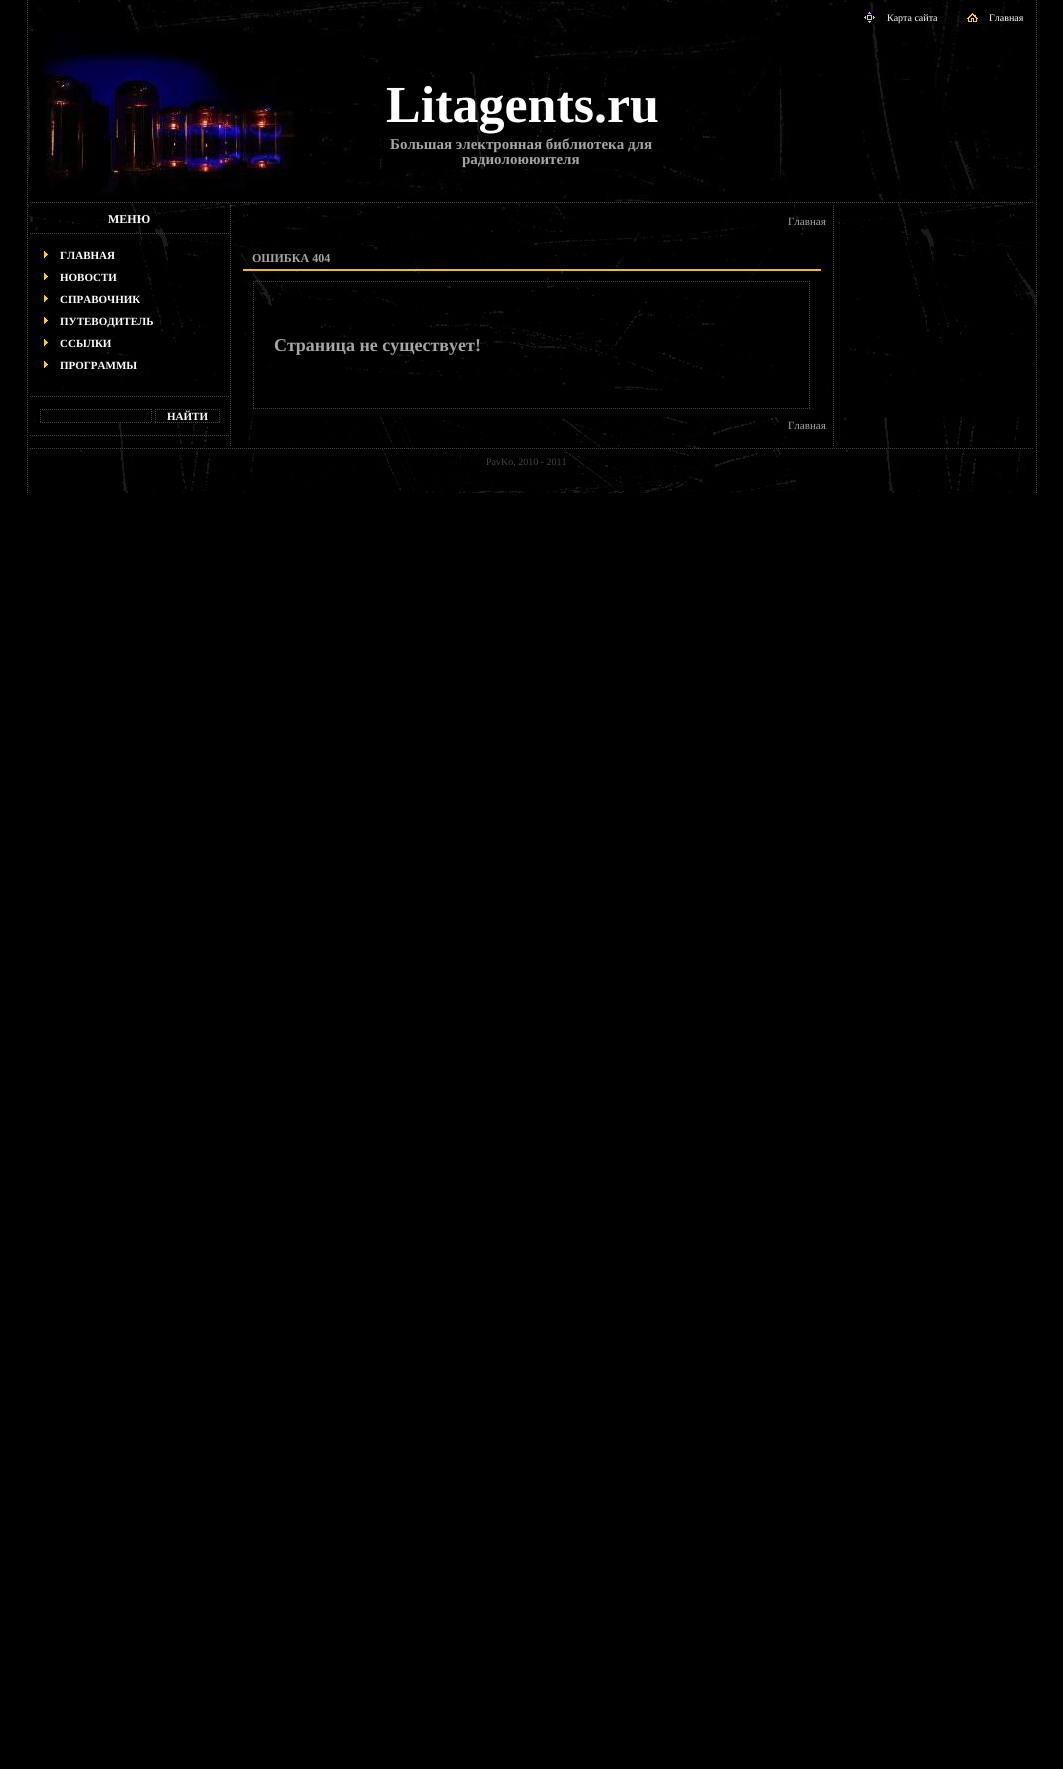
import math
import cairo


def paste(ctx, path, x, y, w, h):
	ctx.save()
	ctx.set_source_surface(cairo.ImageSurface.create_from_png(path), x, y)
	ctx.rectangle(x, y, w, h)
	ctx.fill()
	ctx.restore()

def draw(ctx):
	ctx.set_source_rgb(0, 0, 0)
	ctx.paint()
	paste(ctx, 'media/1.png', 27, 0, 1010, 493)
	ctx.new_path()
	ctx.move_to(1036.5, 0)
	ctx.line_to(1036.5, 493)
	ctx.set_source_rgb(0.271, 0.271, 0.271)
	ctx.set_line_width(1)
	ctx.set_dash([1, 1])
	ctx.stroke()
	ctx.new_path()
	ctx.move_to(27.5, 0)
	ctx.line_to(27.5, 493)
	ctx.stroke()
	paste(ctx, 'media/2.png', 30, 2, 1004, 201)
	ctx.new_path()
	ctx.move_to(30, 202.5)
	ctx.line_to(1034, 202.5)
	ctx.stroke()
	paste(ctx, 'media/3.png', 864, 12, 12, 12)
	ctx.select_font_face('Liberation Serif')
	ctx.set_font_size(10)
	ctx.set_source_rgb(1, 1, 1)
	ctx.move_to(887, 21)
	ctx.show_text('Карта сайта')
	paste(ctx, 'media/4.png', 967, 13, 11, 9)
	ctx.move_to(989, 21)
	ctx.show_text('Главная')
	paste(ctx, 'media/5.png', 380, 72, 283, 97)
	paste(ctx, 'media/6.png', 386, 74, 273, 61)
	ctx.select_font_face('Liberation Serif', cairo.FONT_SLANT_NORMAL, cairo.FONT_WEIGHT_BOLD)
	ctx.set_font_size(52)
	ctx.move_to(386, 122)
	ctx.show_text('Litagents.ru')
	ctx.set_font_size(15)
	ctx.set_source_rgb(0.647, 0.647, 0.647)
	ctx.move_to(390, 149)
	ctx.show_text('Большая электронная библиотека для')
	ctx.move_to(462, 164)
	ctx.show_text('радиолоююителя')
	ctx.new_path()
	ctx.move_to(230.5, 205)
	ctx.line_to(230.5, 446)
	ctx.set_source_rgb(0.271, 0.271, 0.271)
	ctx.stroke()
	ctx.new_path()
	ctx.move_to(30, 233.5)
	ctx.line_to(230, 233.5)
	ctx.stroke()
	ctx.set_font_size(12)
	ctx.set_source_rgb(1, 1, 1)
	ctx.move_to(108, 223)
	ctx.show_text('МЕНЮ')
	paste(ctx, 'media/7.png', 44, 251, 4, 7)
	ctx.set_font_size(11)
	ctx.move_to(60, 259)
	ctx.show_text('ГЛАВНАЯ')
	paste(ctx, 'media/7.png', 44, 273, 4, 7)
	ctx.move_to(60, 281)
	ctx.show_text('НОВОСТИ')
	paste(ctx, 'media/7.png', 44, 295, 4, 7)
	ctx.move_to(60, 303)
	ctx.show_text('СПРАВОЧНИК')
	paste(ctx, 'media/7.png', 44, 317, 4, 7)
	ctx.move_to(60, 325)
	ctx.show_text('ПУТЕВОДИТЕЛЬ')
	paste(ctx, 'media/7.png', 44, 339, 4, 7)
	ctx.move_to(60, 347)
	ctx.show_text('ССЫЛКИ')
	paste(ctx, 'media/7.png', 44, 361, 4, 7)
	ctx.move_to(60, 369)
	ctx.show_text('ПРОГРАММЫ')
	ctx.new_path()
	ctx.move_to(30, 396.5)
	ctx.line_to(230, 396.5)
	ctx.set_source_rgb(0.271, 0.271, 0.271)
	ctx.stroke()
	ctx.set_source_rgb(0, 0, 0)
	ctx.rectangle(78, 417, 43, 6)
	ctx.fill()
	ctx.new_path()
	ctx.move_to(40, 409.5)
	ctx.line_to(152, 409.5)
	ctx.set_source_rgb(0.271, 0.271, 0.271)
	ctx.stroke()
	ctx.new_path()
	ctx.move_to(151.5, 409)
	ctx.line_to(151.5, 423)
	ctx.stroke()
	ctx.new_path()
	ctx.move_to(40, 422.5)
	ctx.line_to(152, 422.5)
	ctx.stroke()
	ctx.new_path()
	ctx.move_to(40.5, 409)
	ctx.line_to(40.5, 423)
	ctx.stroke()
	ctx.set_source_rgb(0, 0, 0)
	ctx.rectangle(167, 417, 42, 6)
	ctx.fill()
	ctx.new_path()
	ctx.move_to(155, 409.5)
	ctx.line_to(220, 409.5)
	ctx.set_source_rgb(0.271, 0.271, 0.271)
	ctx.stroke()
	ctx.new_path()
	ctx.move_to(219.5, 409)
	ctx.line_to(219.5, 423)
	ctx.stroke()
	ctx.new_path()
	ctx.move_to(155, 422.5)
	ctx.line_to(220, 422.5)
	ctx.stroke()
	ctx.new_path()
	ctx.move_to(155.5, 409)
	ctx.line_to(155.5, 423)
	ctx.stroke()
	ctx.set_source_rgb(1, 1, 1)
	ctx.move_to(167, 420)
	ctx.show_text('НАЙТИ')
	ctx.new_path()
	ctx.move_to(30, 435.5)
	ctx.line_to(230, 435.5)
	ctx.set_source_rgb(0.271, 0.271, 0.271)
	ctx.stroke()
	ctx.select_font_face('Liberation Serif')
	ctx.set_source_rgb(0.647, 0.647, 0.647)
	ctx.move_to(788, 225)
	ctx.show_text('Главная')
	ctx.set_source_rgb(0.918, 0.741, 0.114)
	ctx.rectangle(243, 269, 578, 2)
	ctx.fill()
	ctx.select_font_face('Liberation Serif', cairo.FONT_SLANT_NORMAL, cairo.FONT_WEIGHT_BOLD)
	ctx.set_font_size(12)
	ctx.set_source_rgb(0.647, 0.647, 0.647)
	ctx.move_to(252, 262)
	ctx.show_text('ОШИБКА 404')
	ctx.new_path()
	ctx.move_to(253, 281.5)
	ctx.line_to(810, 281.5)
	ctx.set_source_rgb(0.271, 0.271, 0.271)
	ctx.stroke()
	ctx.new_path()
	ctx.move_to(809.5, 281)
	ctx.line_to(809.5, 409)
	ctx.stroke()
	ctx.new_path()
	ctx.move_to(253, 408.5)
	ctx.line_to(810, 408.5)
	ctx.stroke()
	ctx.new_path()
	ctx.move_to(253.5, 281)
	ctx.line_to(253.5, 409)
	ctx.stroke()
	ctx.set_font_size(18)
	ctx.set_source_rgb(0.647, 0.647, 0.647)
	ctx.move_to(274, 351)
	ctx.show_text('Страница не существует!')
	ctx.select_font_face('Liberation Serif')
	ctx.set_font_size(11)
	ctx.move_to(788, 429)
	ctx.show_text('Главная')
	ctx.new_path()
	ctx.move_to(833.5, 205)
	ctx.line_to(833.5, 446)
	ctx.set_source_rgb(0.271, 0.271, 0.271)
	ctx.stroke()
	ctx.new_path()
	ctx.move_to(30, 448.5)
	ctx.line_to(1034, 448.5)
	ctx.stroke()
	paste(ctx, 'media/8.png', 36, 449, 985, 42)
	ctx.set_font_size(10)
	ctx.move_to(486, 465)
	ctx.show_text('PavKo, 2010 - 2011')


surface = cairo.ImageSurface(cairo.FORMAT_RGB24, 1063, 1769)
ctx = cairo.Context(surface)
options = cairo.FontOptions()
options.set_hint_metrics(cairo.HINT_METRICS_OFF)
options.set_hint_style(cairo.HINT_STYLE_NONE)
ctx.set_font_options(options)
ctx.set_miter_limit(4)
draw(ctx)
surface.write_to_png('image.png')
